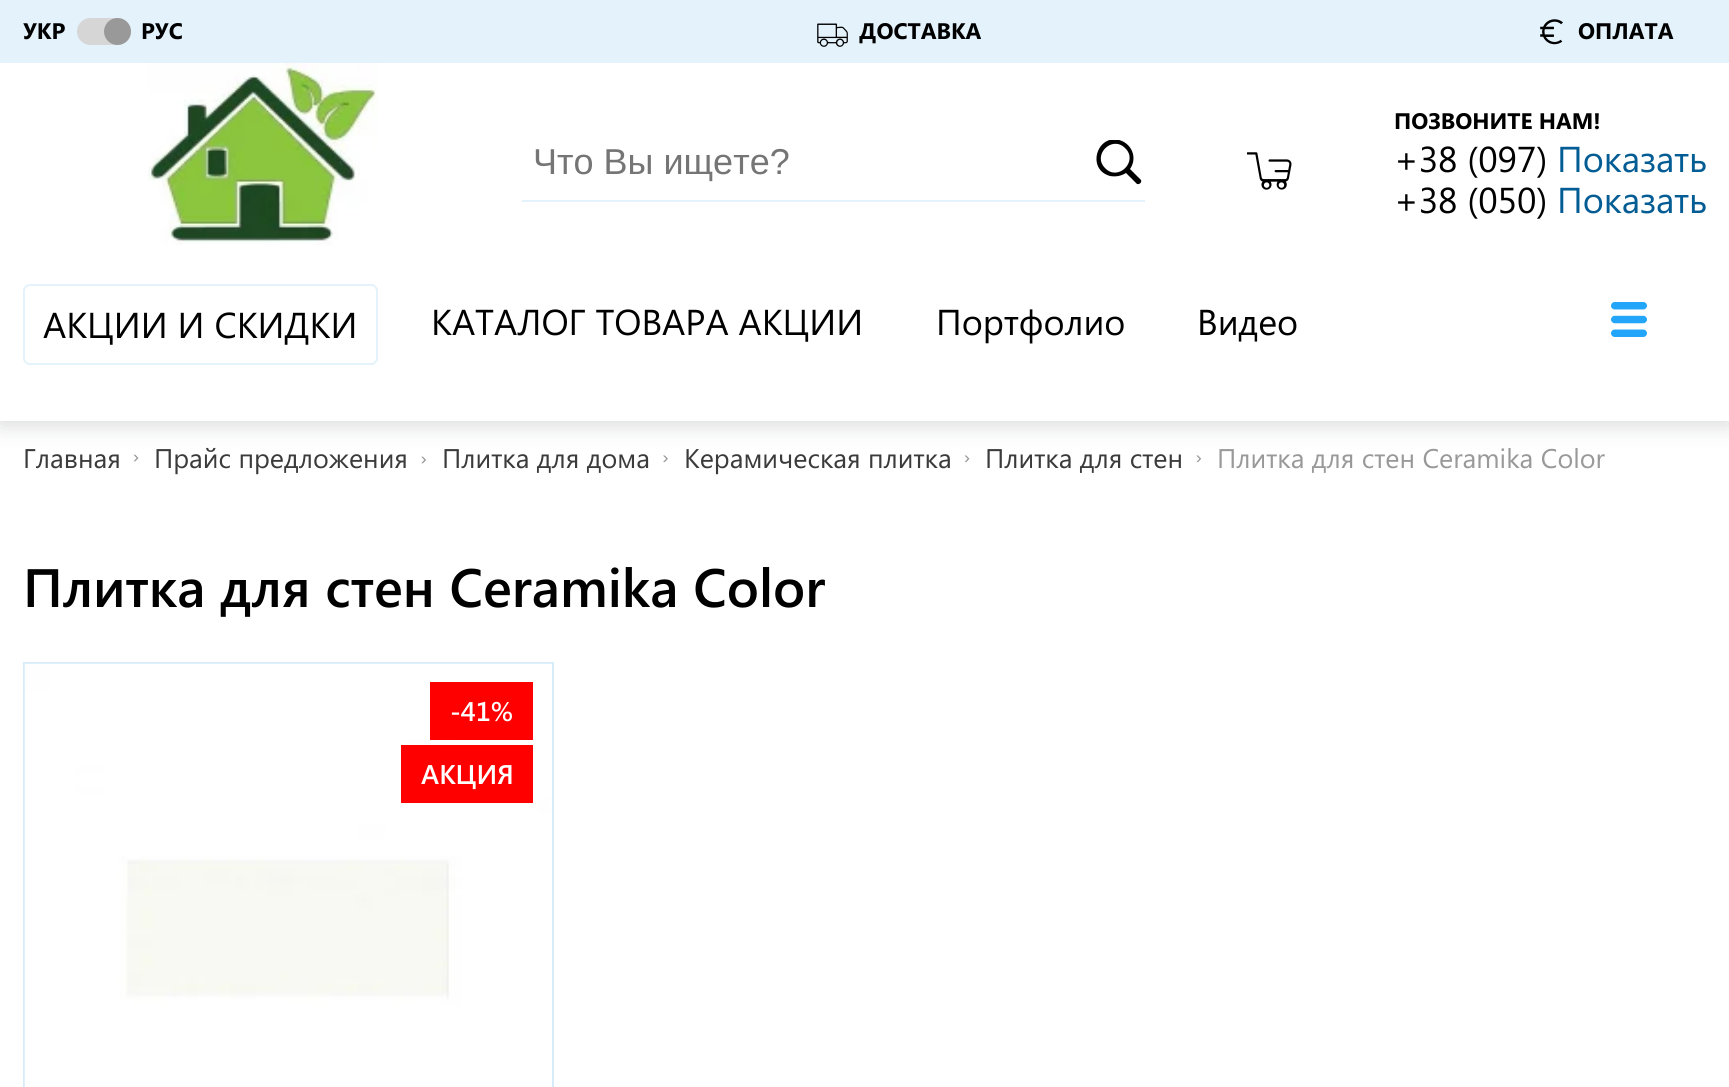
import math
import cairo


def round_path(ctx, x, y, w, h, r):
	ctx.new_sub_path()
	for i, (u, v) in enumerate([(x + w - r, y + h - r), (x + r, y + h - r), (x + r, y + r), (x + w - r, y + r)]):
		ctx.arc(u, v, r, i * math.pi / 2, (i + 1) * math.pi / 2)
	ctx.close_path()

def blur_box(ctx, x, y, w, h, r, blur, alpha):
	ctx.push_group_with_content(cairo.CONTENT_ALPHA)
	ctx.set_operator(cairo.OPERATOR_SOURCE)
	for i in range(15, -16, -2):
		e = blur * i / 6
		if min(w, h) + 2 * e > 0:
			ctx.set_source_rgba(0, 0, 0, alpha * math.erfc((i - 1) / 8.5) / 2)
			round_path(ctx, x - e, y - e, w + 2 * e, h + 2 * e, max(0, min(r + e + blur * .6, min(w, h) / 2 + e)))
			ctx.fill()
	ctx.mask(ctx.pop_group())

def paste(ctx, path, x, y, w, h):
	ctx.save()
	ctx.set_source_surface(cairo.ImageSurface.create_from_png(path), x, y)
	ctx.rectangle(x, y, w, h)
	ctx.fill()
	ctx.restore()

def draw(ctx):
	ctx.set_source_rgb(1, 1, 1)
	ctx.paint()
	paste(ctx, 'media/6.png', 133, 454, 6, 8)
	paste(ctx, 'media/7.png', 421, 456, 5, 8)
	paste(ctx, 'media/8.png', 663, 455, 5, 8)
	paste(ctx, 'media/9.png', 964, 455, 6, 8)
	paste(ctx, 'media/10.png', 1196, 455, 6, 8)
	ctx.save()
	ctx.set_fill_rule(cairo.FILL_RULE_EVEN_ODD)
	ctx.new_path()
	ctx.move_to(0, 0)
	ctx.line_to(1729, 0)
	ctx.line_to(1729, 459)
	ctx.line_to(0, 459)
	ctx.close_path()
	ctx.move_to(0, 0)
	ctx.line_to(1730, 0)
	ctx.line_to(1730, 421)
	ctx.line_to(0, 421)
	ctx.close_path()
	ctx.clip()
	ctx.set_source_rgb(0.851, 0.855, 0.859)
	blur_box(ctx, 0, 5, 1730, 420, 0, 11, 1)
	ctx.restore()
	ctx.set_source_rgb(1, 1, 1)
	ctx.rectangle(23, 420, 1685, 1)
	ctx.fill()
	ctx.set_source_rgb(0.89, 0.949, 0.984)
	ctx.rectangle(0, 0, 1729, 63)
	ctx.fill()
	ctx.select_font_face('Segoe UI', cairo.FONT_SLANT_NORMAL, cairo.FONT_WEIGHT_BOLD)
	ctx.set_font_size(22.5)
	ctx.set_source_rgb(0, 0, 0)
	ctx.move_to(23, 39)
	ctx.show_text('УКР')
	ctx.set_source_rgb(0.839, 0.839, 0.839)
	round_path(ctx, 77, 18, 54, 27, 13.5)
	ctx.fill()
	ctx.set_source_rgb(0.6, 0.6, 0.6)
	ctx.arc(117.5, 31.5, 13.5, 0, 2 * math.pi)
	ctx.fill()
	ctx.set_source_rgb(0, 0, 0)
	ctx.move_to(141, 39)
	ctx.show_text('РУС')
	paste(ctx, 'media/1.png', 817, 23, 31, 24)
	ctx.move_to(859, 39)
	ctx.show_text('ДОСТАВКА')
	paste(ctx, 'media/2.png', 1540, 19, 23, 26)
	ctx.move_to(1578, 39)
	ctx.show_text('ОПЛАТА')
	paste(ctx, 'media/3.png', 148, 63, 230, 182)
	ctx.set_source_rgb(0.89, 0.949, 0.984)
	ctx.rectangle(522, 200, 623, 2)
	ctx.fill()
	ctx.select_font_face('Liberation Sans')
	ctx.set_font_size(36)
	ctx.set_source_rgb(0.459, 0.459, 0.459)
	ctx.move_to(533, 174)
	ctx.show_text('Что Вы ищете?')
	ctx.save()
	ctx.rectangle(1091, 140, 54, 45)
	ctx.clip()
	ctx.set_source_rgb(0, 0, 0)
	ctx.new_path()
	ctx.move_to(1140, 179)
	ctx.line_to(1130, 169)
	ctx.curve_to(1137, 159, 1133, 146, 1122, 141)
	ctx.curve_to(1098, 131, 1085, 169, 1110, 176)
	ctx.curve_to(1116, 177, 1121, 176, 1126, 173)
	ctx.line_to(1137, 184)
	ctx.curve_to(1140, 185, 1143, 181, 1140, 179)
	ctx.close_path()
	ctx.move_to(1105, 168)
	ctx.curve_to(1092, 155, 1112, 135, 1125, 148)
	ctx.curve_to(1139, 161, 1118, 182, 1105, 168)
	ctx.close_path()
	ctx.fill()
	ctx.restore()
	paste(ctx, 'media/4.png', 1247, 152, 45, 38)
	ctx.select_font_face('Segoe UI', cairo.FONT_SLANT_NORMAL, cairo.FONT_WEIGHT_BOLD)
	ctx.set_font_size(22.5)
	ctx.set_source_rgb(0, 0, 0)
	ctx.move_to(1394, 129)
	ctx.show_text('ПОЗВОНИТЕ НАМ!')
	ctx.select_font_face('Segoe UI')
	ctx.set_font_size(36)
	ctx.move_to(1394, 172)
	ctx.show_text('+38 (097)')
	ctx.set_source_rgb(0.012, 0.361, 0.58)
	ctx.move_to(1557, 172)
	ctx.show_text('Показать')
	ctx.set_source_rgb(0, 0, 0)
	ctx.move_to(1394, 213)
	ctx.show_text('+38 (050)')
	ctx.set_source_rgb(0.012, 0.361, 0.58)
	ctx.move_to(1557, 213)
	ctx.show_text('Показать')
	round_path(ctx, 24, 285, 353, 79, 6)
	ctx.set_source_rgb(0.89, 0.949, 0.984)
	ctx.stroke()
	ctx.set_source_rgb(0, 0, 0)
	for x, y, s in [
		(43, 338, 'АКЦИИ И СКИДКИ'),
		(431, 335, 'КАТАЛОГ ТОВАРА АКЦИИ'),
		(936, 335, 'Портфолио'),
		(1197, 335, 'Видео'),
	]:
		ctx.move_to(x, y)
		ctx.show_text(s)
	paste(ctx, 'media/5.png', 1611, 302, 36, 35)
	ctx.set_font_size(27)
	ctx.set_source_rgb(0.231, 0.231, 0.231)
	for x, y, s in [
		(23, 468, 'Главная'),
		(154, 468, 'Прайс предложения'),
		(442, 468, 'Плитка для дома'),
		(684, 468, 'Керамическая плитка'),
		(985, 468, 'Плитка для стен'),
	]:
		ctx.move_to(x, y)
		ctx.show_text(s)
	ctx.set_source_rgb(0.6, 0.6, 0.6)
	ctx.move_to(1217, 468)
	ctx.show_text('Плитка для стен Ceramika Color')
	ctx.select_font_face('Segoe UI SemiBold')
	ctx.set_font_size(54)
	ctx.set_source_rgb(0, 0, 0)
	ctx.move_to(23, 607)
	ctx.show_text('Плитка для стен Ceramika Color')
	ctx.rectangle(24, 663, 529, 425)
	ctx.set_source_rgb(0.839, 0.925, 0.976)
	ctx.stroke()
	paste(ctx, 'media/11.png', 24, 663, 527, 424)
	ctx.set_source_rgb(1, 0, 0)
	ctx.rectangle(430, 682, 103, 58)
	ctx.fill()
	ctx.set_font_size(27)
	ctx.set_source_rgb(1, 1, 1)
	ctx.move_to(450, 721)
	ctx.show_text('-41%')
	ctx.set_source_rgb(1, 0, 0)
	ctx.rectangle(401, 745, 132, 58)
	ctx.fill()
	ctx.set_source_rgb(1, 1, 1)
	ctx.move_to(421, 784)
	ctx.show_text('АКЦИЯ')


surface = cairo.ImageSurface(cairo.FORMAT_RGB24, 1729, 1087)
ctx = cairo.Context(surface)
options = cairo.FontOptions()
options.set_hint_metrics(cairo.HINT_METRICS_OFF)
options.set_hint_style(cairo.HINT_STYLE_NONE)
ctx.set_font_options(options)
ctx.set_miter_limit(4)
draw(ctx)
surface.write_to_png('image.png')
